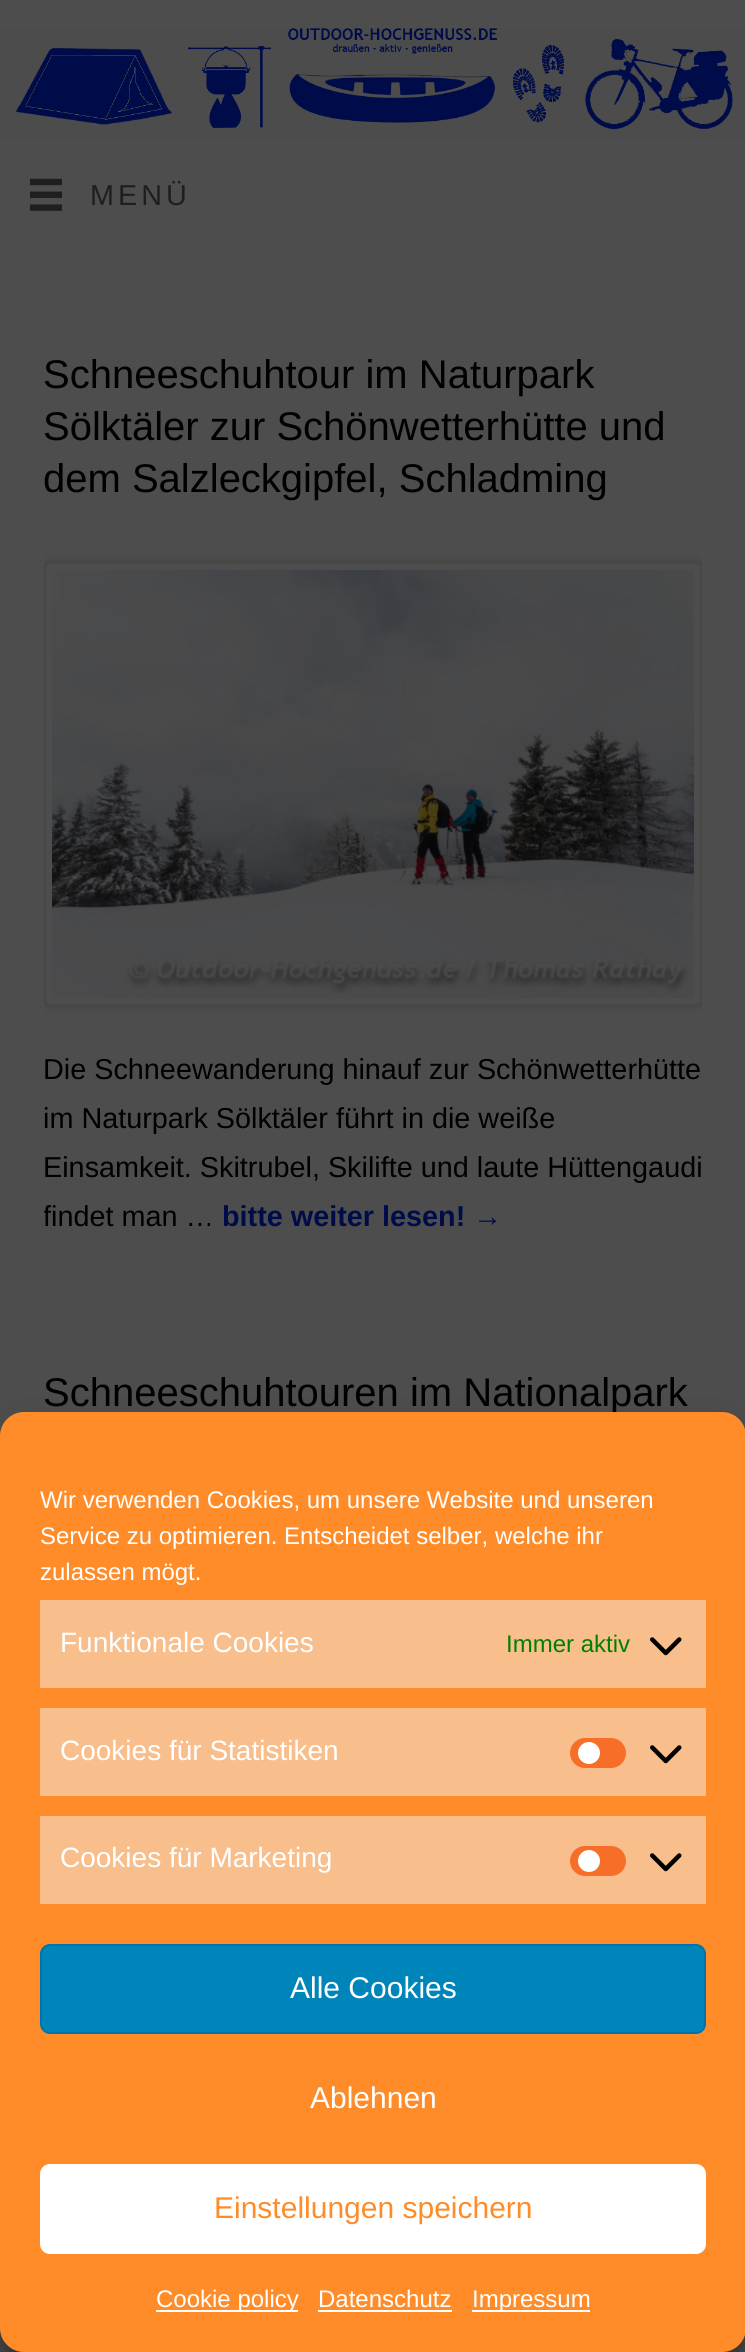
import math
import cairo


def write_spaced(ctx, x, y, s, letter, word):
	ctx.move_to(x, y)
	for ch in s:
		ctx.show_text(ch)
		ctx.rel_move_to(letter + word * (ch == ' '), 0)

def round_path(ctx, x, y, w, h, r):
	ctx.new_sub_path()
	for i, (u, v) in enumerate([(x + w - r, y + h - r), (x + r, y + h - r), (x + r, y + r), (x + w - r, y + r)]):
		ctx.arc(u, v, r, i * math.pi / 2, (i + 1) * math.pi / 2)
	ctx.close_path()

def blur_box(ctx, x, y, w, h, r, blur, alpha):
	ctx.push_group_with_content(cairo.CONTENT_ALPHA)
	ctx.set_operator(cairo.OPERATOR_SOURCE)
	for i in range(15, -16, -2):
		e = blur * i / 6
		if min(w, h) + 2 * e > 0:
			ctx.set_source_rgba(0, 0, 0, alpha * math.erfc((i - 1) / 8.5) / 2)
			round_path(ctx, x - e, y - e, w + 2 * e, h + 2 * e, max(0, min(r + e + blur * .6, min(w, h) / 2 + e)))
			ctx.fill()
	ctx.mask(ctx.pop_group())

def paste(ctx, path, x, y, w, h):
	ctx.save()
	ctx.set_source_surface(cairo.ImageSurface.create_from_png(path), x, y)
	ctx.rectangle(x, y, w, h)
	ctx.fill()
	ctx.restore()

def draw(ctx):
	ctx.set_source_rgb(0.302, 0.302, 0.302)
	ctx.paint()
	paste(ctx, 'media/1.png', 0, 28, 745, 112)
	paste(ctx, 'media/2.png', 30, 178, 32, 33)
	ctx.select_font_face('Liberation Sans')
	ctx.set_font_size(28.8)
	ctx.set_source_rgb(0.122, 0.122, 0.122)
	write_spaced(ctx, 90, 205, 'MENÜ', 4, 0)
	ctx.set_font_size(40)
	ctx.set_source_rgb(0, 0, 0)
	for x, y, s in [
		(43, 388, 'Schneeschuhtour im Naturpark'),
		(43, 440, 'Sölktäler zur Schönwetterhütte und'),
		(43, 492, 'dem Salzleckgipfel, Schladming'),
	]:
		ctx.move_to(x, y)
		ctx.show_text(s)
	ctx.save()
	ctx.rectangle(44, 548, 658, 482)
	ctx.clip()
	ctx.set_source_rgb(0.239, 0.239, 0.239)
	blur_box(ctx, 44, 562, 658, 444, 6, 4, 1)
	ctx.restore()
	ctx.set_source_rgb(0.302, 0.302, 0.302)
	round_path(ctx, 45, 563, 656, 442, 5)
	ctx.fill_preserve()
	ctx.set_source_rgb(0.278, 0.278, 0.278)
	ctx.stroke()
	paste(ctx, 'media/3.png', 52, 570, 642, 428)
	ctx.set_font_size(28.8)
	ctx.set_source_rgb(0, 0, 0)
	for x, y, s in [
		(43, 1079, 'Die Schneewanderung hinauf zur Schönwetterhütte'),
		(43, 1128, 'im Naturpark Sölktäler führt in die weiße'),
		(43, 1177, 'Einsamkeit. Skitrubel, Skilifte und laute Hüttengaudi'),
	]:
		ctx.move_to(x, y)
		ctx.show_text(s)
	ctx.save()
	ctx.rectangle(44, 348, 658, 922)
	ctx.clip()
	ctx.move_to(43, 1226)
	ctx.show_text('findet man …')
	ctx.restore()
	ctx.select_font_face('Liberation Sans', cairo.FONT_SLANT_NORMAL, cairo.FONT_WEIGHT_BOLD)
	ctx.set_source_rgb(0, 0.047, 0.29)
	ctx.move_to(222, 1226)
	ctx.show_text('bitte weiter lesen! →')
	ctx.select_font_face('Liberation Sans')
	ctx.set_font_size(40)
	ctx.set_source_rgb(0, 0, 0)
	ctx.move_to(43, 1406)
	ctx.show_text('Schneeschuhtouren im Nationalpark')
	ctx.set_source_rgb(0, 0, 0)
	blur_box(ctx, 0, 1424, 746, 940, 24, 6, 0.23)
	blur_box(ctx, 0, 1432, 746, 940, 24, 20, 0.19)
	ctx.set_source_rgb(1, 0.549, 0.157)
	round_path(ctx, 0, 1412, 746, 940, 24)
	ctx.fill()
	ctx.set_font_size(24)
	ctx.set_source_rgb(1, 1, 1)
	for x, y, s in [
		(40, 1508, 'Wir verwenden Cookies, um unsere Website und unseren'),
		(40, 1544, 'Service zu optimieren. Entscheidet selber, welche ihr'),
		(40, 1580, 'zulassen mögt.'),
	]:
		ctx.move_to(x, y)
		ctx.show_text(s)
	ctx.set_source_rgb(0.969, 0.745, 0.549)
	ctx.rectangle(40, 1600, 666, 88)
	ctx.fill()
	ctx.set_font_size(28)
	ctx.set_source_rgb(1, 1, 1)
	ctx.move_to(60, 1652)
	ctx.show_text('Funktionale Cookies')
	ctx.set_font_size(24)
	ctx.set_source_rgb(0, 0.502, 0)
	ctx.move_to(506, 1652)
	ctx.show_text('Immer aktiv')
	paste(ctx, 'media/4.png', 650, 1637, 32, 19)
	ctx.set_source_rgb(0.969, 0.745, 0.549)
	ctx.rectangle(40, 1708, 666, 88)
	ctx.fill()
	ctx.set_font_size(28)
	ctx.set_source_rgb(1, 1, 1)
	ctx.move_to(60, 1760)
	ctx.show_text('Cookies für Statistiken')
	ctx.set_source_rgb(0.961, 0.431, 0.157)
	round_path(ctx, 570, 1738, 56, 30, 15)
	ctx.fill()
	ctx.set_source_rgb(1, 1, 1)
	ctx.arc(589, 1753, 11, 0, 2 * math.pi)
	ctx.fill()
	paste(ctx, 'media/4.png', 650, 1745, 32, 19)
	ctx.set_source_rgb(0.969, 0.745, 0.549)
	ctx.rectangle(40, 1816, 666, 88)
	ctx.fill()
	ctx.set_source_rgb(1, 1, 1)
	ctx.move_to(60, 1867)
	ctx.show_text('Cookies für Marketing')
	ctx.set_source_rgb(0.961, 0.431, 0.157)
	round_path(ctx, 570, 1846, 56, 30, 15)
	ctx.fill()
	ctx.set_source_rgb(1, 1, 1)
	ctx.arc(589, 1861, 11, 0, 2 * math.pi)
	ctx.fill()
	paste(ctx, 'media/4.png', 650, 1853, 32, 19)
	ctx.set_source_rgb(0, 0.522, 0.729)
	round_path(ctx, 41, 1945, 664, 88, 9)
	ctx.fill_preserve()
	ctx.set_source_rgb(0, 0.451, 0.667)
	ctx.stroke()
	ctx.set_font_size(30)
	ctx.set_source_rgb(1, 1, 1)
	ctx.move_to(290, 1998)
	ctx.show_text('Alle Cookies')
	ctx.move_to(310, 2108)
	ctx.show_text('Ablehnen')
	round_path(ctx, 41, 2165, 664, 88, 9)
	ctx.fill_preserve()
	ctx.stroke()
	ctx.set_source_rgb(1, 0.549, 0.157)
	ctx.move_to(214, 2218)
	ctx.show_text('Einstellungen speichern')
	ctx.set_source_rgb(1, 1, 1)
	ctx.rectangle(156, 2310, 142, 2)
	ctx.fill()
	ctx.set_font_size(24)
	ctx.move_to(156, 2307)
	ctx.show_text('Cookie policy')
	ctx.move_to(318, 2307)
	ctx.show_text('Datenschutz')
	ctx.rectangle(318, 2310, 134, 2)
	ctx.fill()
	ctx.rectangle(472, 2310, 118, 2)
	ctx.fill()
	ctx.move_to(472, 2307)
	ctx.show_text('Impressum')


surface = cairo.ImageSurface(cairo.FORMAT_RGB24, 745, 2352)
ctx = cairo.Context(surface)
options = cairo.FontOptions()
options.set_hint_metrics(cairo.HINT_METRICS_OFF)
options.set_hint_style(cairo.HINT_STYLE_NONE)
ctx.set_font_options(options)
ctx.set_miter_limit(4)
draw(ctx)
surface.write_to_png('image.png')
